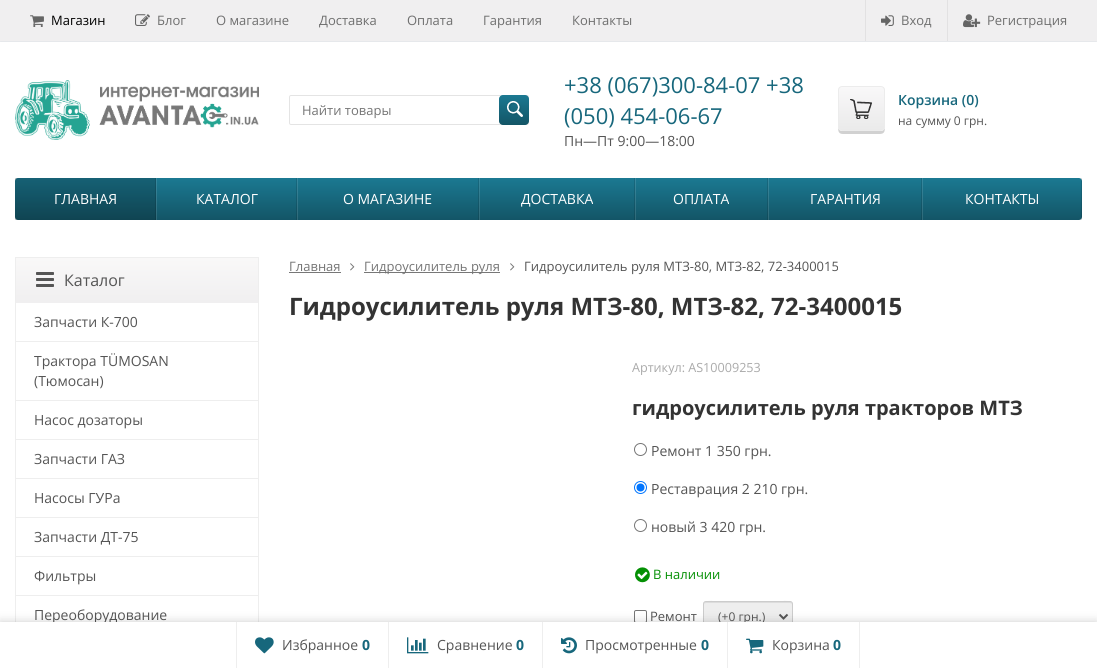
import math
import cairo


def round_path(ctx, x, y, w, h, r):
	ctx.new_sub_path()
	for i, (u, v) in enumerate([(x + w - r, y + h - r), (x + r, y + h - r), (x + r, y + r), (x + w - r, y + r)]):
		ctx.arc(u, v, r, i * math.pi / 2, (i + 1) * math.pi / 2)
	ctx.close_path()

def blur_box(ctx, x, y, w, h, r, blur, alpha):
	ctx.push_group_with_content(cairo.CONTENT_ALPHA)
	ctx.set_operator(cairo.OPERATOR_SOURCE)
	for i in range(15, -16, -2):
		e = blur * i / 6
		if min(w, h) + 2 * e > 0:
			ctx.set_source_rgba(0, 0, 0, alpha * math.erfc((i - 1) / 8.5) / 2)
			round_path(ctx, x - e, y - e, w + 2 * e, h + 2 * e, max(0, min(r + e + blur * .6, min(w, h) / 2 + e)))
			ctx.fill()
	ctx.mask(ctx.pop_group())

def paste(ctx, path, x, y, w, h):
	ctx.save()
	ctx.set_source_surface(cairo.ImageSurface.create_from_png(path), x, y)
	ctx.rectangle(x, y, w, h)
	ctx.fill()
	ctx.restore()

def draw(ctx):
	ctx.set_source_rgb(1, 1, 1)
	ctx.paint()
	ctx.set_source_rgb(0.941, 0.937, 0.941)
	ctx.rectangle(0, 0, 1097, 42)
	ctx.fill()
	ctx.set_source_rgb(0.902, 0.91, 0.918)
	round_path(ctx, 0, 41, 1097, 1, 0.5)
	ctx.fill()
	paste(ctx, 'media/1.png', 30, 15, 14, 12)
	ctx.select_font_face('Open Sans')
	ctx.set_font_size(13)
	ctx.set_source_rgb(0, 0, 0)
	ctx.move_to(51, 25)
	ctx.show_text('Магазин')
	paste(ctx, 'media/2.png', 135, 14, 15, 12)
	ctx.set_source_rgb(0.435, 0.435, 0.435)
	for x, y, s in [
		(157, 25, 'Блог'),
		(216, 25, 'О магазине'),
		(319, 25, 'Доставка'),
		(407, 25, 'Оплата'),
		(483, 25, 'Гарантия'),
		(572, 25, 'Контакты'),
	]:
		ctx.move_to(x, y)
		ctx.show_text(s)
	ctx.set_source_rgb(0.886, 0.882, 0.886)
	ctx.rectangle(865, 0, 1, 41)
	ctx.fill()
	paste(ctx, 'media/3.png', 881, 15, 13, 11)
	ctx.set_source_rgb(0.435, 0.435, 0.435)
	ctx.move_to(901, 25)
	ctx.show_text('Вход')
	ctx.set_source_rgb(0.886, 0.882, 0.886)
	ctx.rectangle(947, 0, 1, 41)
	ctx.fill()
	paste(ctx, 'media/4.png', 963, 14, 18, 14)
	ctx.set_source_rgb(0.435, 0.435, 0.435)
	ctx.move_to(987, 25)
	ctx.show_text('Регистрация')
	paste(ctx, 'media/5.png', 15, 80, 244, 60)
	round_path(ctx, 289.5, 95.5, 239, 29, 1.5)
	ctx.set_source_rgb(0.894, 0.894, 0.894)
	ctx.set_line_width(1)
	ctx.stroke()
	ctx.set_source_rgb(0.459, 0.459, 0.459)
	ctx.move_to(302, 115)
	ctx.show_text('Найти товары')
	gradient = cairo.LinearGradient(514, 95, 514, 125)
	gradient.add_color_stop_rgba(0, 0.106, 0.475, 0.573, 1)
	gradient.add_color_stop_rgba(1, 0.075, 0.333, 0.4, 1)
	ctx.set_source(gradient)
	round_path(ctx, 499, 95, 30, 30, 4)
	ctx.fill()
	paste(ctx, 'media/6.png', 507, 101, 16, 16)
	ctx.set_font_size(22)
	ctx.set_source_rgb(0.09, 0.404, 0.486)
	ctx.move_to(564, 93)
	ctx.show_text('+38 (067)300-84-07 +38')
	ctx.move_to(564, 124)
	ctx.show_text('(050) 454-06-67')
	ctx.set_font_size(14)
	ctx.set_source_rgb(0.333, 0.333, 0.333)
	ctx.move_to(564, 146)
	ctx.show_text('Пн—Пт 9:00—18:00')
	ctx.set_source_rgb(0.82, 0.82, 0.82)
	ctx.new_path()
	ctx.move_to(838, 127)
	ctx.curve_to(838, 135, 841, 134, 848, 134)
	ctx.line_to(874, 134)
	ctx.curve_to(882, 134, 885, 135, 885, 127)
	ctx.curve_to(885, 129, 883, 131, 881, 131)
	ctx.line_to(842, 131)
	ctx.curve_to(840, 131, 838, 129, 838, 127)
	ctx.close_path()
	ctx.fill()
	ctx.save()
	round_path(ctx, 838, 86, 47, 45, 4)
	ctx.clip()
	gradient = cairo.LinearGradient(862, 87, 862, 130)
	gradient.add_color_stop_rgba(0, 0.976, 0.973, 0.976, 1)
	gradient.add_color_stop_rgba(1, 0.918, 0.918, 0.918, 1)
	ctx.set_source(gradient)
	ctx.rectangle(838, 87, 47, 43)
	ctx.fill()
	ctx.restore()
	round_path(ctx, 838.5, 86.5, 46, 44, 3.5)
	ctx.set_source_rgb(0.925, 0.925, 0.925)
	ctx.stroke()
	paste(ctx, 'media/7.png', 850, 99, 22, 20)
	ctx.select_font_face('Open Sans SemiBold')
	ctx.set_source_rgb(0.09, 0.404, 0.486)
	ctx.move_to(898, 105)
	ctx.show_text('Корзина (0)')
	ctx.select_font_face('Open Sans')
	ctx.set_font_size(12)
	ctx.set_source_rgb(0.333, 0.333, 0.333)
	ctx.move_to(898, 125)
	ctx.show_text('на сумму 0 грн.')
	gradient = cairo.LinearGradient(549, 178, 549, 220)
	gradient.add_color_stop_rgba(0, 0.106, 0.475, 0.573, 1)
	gradient.add_color_stop_rgba(1, 0.075, 0.333, 0.4, 1)
	ctx.set_source(gradient)
	round_path(ctx, 15, 178, 1067, 42, 3)
	ctx.fill()
	gradient = cairo.LinearGradient(549, 178, 549, 220)
	gradient.add_color_stop_rgba(0, 0.212, 0.537, 0.624, 1)
	gradient.add_color_stop_rgba(1, 0.184, 0.412, 0.471, 1)
	ctx.set_source(gradient)
	ctx.rectangle(922, 178, 1, 42)
	ctx.fill()
	ctx.rectangle(768, 178, 1, 42)
	ctx.fill()
	gradient = cairo.LinearGradient(549, 178, 549, 220)
	gradient.add_color_stop_rgba(0, 0.094, 0.416, 0.502, 1)
	gradient.add_color_stop_rgba(1, 0.067, 0.294, 0.353, 1)
	ctx.set_source(gradient)
	ctx.rectangle(921, 178, 1, 42)
	ctx.fill()
	gradient = cairo.LinearGradient(549, 178, 549, 220)
	gradient.add_color_stop_rgba(0, 0.212, 0.537, 0.624, 1)
	gradient.add_color_stop_rgba(1, 0.184, 0.412, 0.471, 1)
	ctx.set_source(gradient)
	ctx.rectangle(635, 178, 1, 42)
	ctx.fill()
	gradient = cairo.LinearGradient(549, 178, 549, 220)
	gradient.add_color_stop_rgba(0, 0.094, 0.416, 0.502, 1)
	gradient.add_color_stop_rgba(1, 0.067, 0.294, 0.353, 1)
	ctx.set_source(gradient)
	ctx.rectangle(767, 178, 1, 42)
	ctx.fill()
	gradient = cairo.LinearGradient(549, 178, 549, 220)
	gradient.add_color_stop_rgba(0, 0.212, 0.537, 0.624, 1)
	gradient.add_color_stop_rgba(1, 0.184, 0.412, 0.471, 1)
	ctx.set_source(gradient)
	ctx.rectangle(479, 178, 1, 42)
	ctx.fill()
	gradient = cairo.LinearGradient(549, 178, 549, 220)
	gradient.add_color_stop_rgba(0, 0.094, 0.416, 0.502, 1)
	gradient.add_color_stop_rgba(1, 0.067, 0.294, 0.353, 1)
	ctx.set_source(gradient)
	ctx.rectangle(634, 178, 1, 42)
	ctx.fill()
	gradient = cairo.LinearGradient(549, 178, 549, 220)
	gradient.add_color_stop_rgba(0, 0.212, 0.537, 0.624, 1)
	gradient.add_color_stop_rgba(1, 0.184, 0.412, 0.471, 1)
	ctx.set_source(gradient)
	ctx.rectangle(297, 178, 1, 42)
	ctx.fill()
	gradient = cairo.LinearGradient(549, 178, 549, 220)
	gradient.add_color_stop_rgba(0, 0.094, 0.416, 0.502, 1)
	gradient.add_color_stop_rgba(1, 0.067, 0.294, 0.353, 1)
	ctx.set_source(gradient)
	ctx.rectangle(478, 178, 1, 42)
	ctx.fill()
	gradient = cairo.LinearGradient(549, 178, 549, 220)
	gradient.add_color_stop_rgba(0, 0.212, 0.537, 0.624, 1)
	gradient.add_color_stop_rgba(1, 0.184, 0.412, 0.471, 1)
	ctx.set_source(gradient)
	ctx.rectangle(156, 178, 1, 42)
	ctx.fill()
	gradient = cairo.LinearGradient(549, 178, 549, 220)
	gradient.add_color_stop_rgba(0, 0.094, 0.416, 0.502, 1)
	gradient.add_color_stop_rgba(1, 0.067, 0.294, 0.353, 1)
	ctx.set_source(gradient)
	ctx.rectangle(296, 178, 1, 42)
	ctx.fill()
	ctx.set_source_rgba(0, 0, 0, 0.2)
	ctx.rectangle(15, 178, 141, 42)
	ctx.fill()
	ctx.set_source_rgba(0, 0, 0, 0.12)
	ctx.rectangle(155, 178, 1, 42)
	ctx.fill()
	ctx.set_font_size(14)
	ctx.set_source_rgb(1, 1, 1)
	for x, y, s in [
		(54, 204, 'ГЛАВНАЯ'),
		(196, 204, 'КАТАЛОГ'),
		(343, 204, 'О МАГАЗИНЕ'),
		(521, 204, 'ДОСТАВКА'),
		(673, 204, 'ОПЛАТА'),
		(810, 204, 'ГАРАНТИЯ'),
	]:
		ctx.move_to(x, y)
		ctx.show_text(s)
	ctx.set_source_rgba(0, 0, 0, 0.12)
	ctx.rectangle(1081, 178, 1, 42)
	ctx.fill()
	ctx.set_source_rgb(1, 1, 1)
	ctx.move_to(965, 204)
	ctx.show_text('КОНТАКТЫ')
	ctx.rectangle(15.5, 257.5, 243, 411)
	ctx.set_source_rgb(0.933, 0.933, 0.933)
	ctx.stroke()
	gradient = cairo.LinearGradient(137, 258, 137, 303)
	gradient.add_color_stop_rgba(0, 0.976, 0.973, 0.973, 1)
	gradient.add_color_stop_rgba(1, 0.941, 0.937, 0.941, 1)
	ctx.set_source(gradient)
	ctx.rectangle(16, 258, 242, 45)
	ctx.fill()
	paste(ctx, 'media/8.png', 36, 272, 18, 15)
	ctx.set_font_size(16)
	ctx.set_source_rgb(0.333, 0.333, 0.333)
	ctx.move_to(64, 286)
	ctx.show_text('Каталог')
	ctx.set_font_size(14)
	ctx.move_to(34, 327)
	ctx.show_text('Запчасти К-700')
	ctx.set_source_rgb(0.933, 0.933, 0.933)
	ctx.rectangle(16, 341, 242, 1)
	ctx.fill()
	ctx.set_source_rgb(0.333, 0.333, 0.333)
	ctx.move_to(34, 366)
	ctx.show_text('Трактора TÜMOSAN')
	ctx.move_to(34, 386)
	ctx.show_text('(Тюмосан)')
	ctx.set_source_rgb(0.933, 0.933, 0.933)
	ctx.rectangle(16, 400, 242, 1)
	ctx.fill()
	ctx.set_source_rgb(0.333, 0.333, 0.333)
	ctx.move_to(34, 425)
	ctx.show_text('Насос дозаторы')
	ctx.set_source_rgb(0.933, 0.933, 0.933)
	ctx.rectangle(16, 439, 242, 1)
	ctx.fill()
	ctx.set_source_rgb(0.333, 0.333, 0.333)
	ctx.move_to(34, 464)
	ctx.show_text('Запчасти ГАЗ')
	ctx.set_source_rgb(0.933, 0.933, 0.933)
	ctx.rectangle(16, 478, 242, 1)
	ctx.fill()
	ctx.set_source_rgb(0.333, 0.333, 0.333)
	ctx.move_to(34, 503)
	ctx.show_text('Насосы ГУРа')
	ctx.set_source_rgb(0.933, 0.933, 0.933)
	ctx.rectangle(16, 517, 242, 1)
	ctx.fill()
	ctx.set_source_rgb(0.333, 0.333, 0.333)
	ctx.move_to(34, 542)
	ctx.show_text('Запчасти ДТ-75')
	ctx.set_source_rgb(0.933, 0.933, 0.933)
	ctx.rectangle(16, 556, 242, 1)
	ctx.fill()
	ctx.set_source_rgb(0.333, 0.333, 0.333)
	ctx.move_to(34, 581)
	ctx.show_text('Фильтры')
	ctx.set_source_rgb(0.933, 0.933, 0.933)
	ctx.rectangle(16, 595, 242, 1)
	ctx.fill()
	ctx.set_source_rgb(0.333, 0.333, 0.333)
	ctx.move_to(34, 620)
	ctx.show_text('Переоборудование')
	ctx.set_font_size(13)
	ctx.set_source_rgb(0.459, 0.459, 0.459)
	ctx.move_to(289, 271)
	ctx.show_text('Главная')
	ctx.set_source_rgb(0.467, 0.467, 0.467)
	ctx.rectangle(289, 272, 52, 1)
	ctx.fill()
	paste(ctx, 'media/9.png', 350, 263, 5, 8)
	ctx.rectangle(364, 272, 136, 1)
	ctx.fill()
	ctx.set_source_rgb(0.459, 0.459, 0.459)
	ctx.move_to(364, 271)
	ctx.show_text('Гидроусилитель руля')
	paste(ctx, 'media/9.png', 510, 263, 5, 8)
	ctx.set_source_rgb(0.333, 0.333, 0.333)
	ctx.move_to(524, 271)
	ctx.show_text('Гидроусилитель руля МТЗ-80, МТЗ-82, 72-3400015')
	ctx.select_font_face('Open Sans', cairo.FONT_SLANT_NORMAL, cairo.FONT_WEIGHT_BOLD)
	ctx.set_font_size(24)
	ctx.set_source_rgb(0.2, 0.2, 0.2)
	ctx.move_to(289, 315)
	ctx.show_text('Гидроусилитель руля МТЗ-80, МТЗ-82, 72-3400015')
	ctx.select_font_face('Open Sans')
	ctx.set_font_size(12.6)
	ctx.set_source_rgb(0.667, 0.667, 0.667)
	ctx.move_to(632, 372)
	ctx.show_text('Артикул: AS10009253')
	ctx.select_font_face('Open Sans', cairo.FONT_SLANT_NORMAL, cairo.FONT_WEIGHT_BOLD)
	ctx.set_font_size(20)
	ctx.set_source_rgb(0.2, 0.2, 0.2)
	ctx.move_to(632, 415)
	ctx.show_text('гидроусилитель руля тракторов МТЗ')
	ctx.new_path()
	ctx.arc(640.5, 449.5, 6, 0, 2 * math.pi)
	ctx.set_source_rgb(0.463, 0.463, 0.463)
	ctx.stroke()
	ctx.select_font_face('Open Sans')
	ctx.set_font_size(14)
	ctx.set_source_rgb(0.333, 0.333, 0.333)
	ctx.move_to(651, 456)
	ctx.show_text('Ремонт 1 350 грн.')
	ctx.new_path()
	ctx.arc(640.5, 487.5, 6, 0, 2 * math.pi)
	ctx.set_source_rgb(0, 0.459, 1)
	ctx.stroke()
	ctx.arc(640.5, 487.5, 4, 0, 2 * math.pi)
	ctx.fill()
	ctx.set_source_rgb(0.333, 0.333, 0.333)
	ctx.move_to(651, 494)
	ctx.show_text('Реставрация 2 210 грн.')
	ctx.new_path()
	ctx.arc(640.5, 525.5, 6, 0, 2 * math.pi)
	ctx.set_source_rgb(0.463, 0.463, 0.463)
	ctx.stroke()
	ctx.set_source_rgb(0.333, 0.333, 0.333)
	ctx.move_to(651, 532)
	ctx.show_text('новый 3 420 грн.')
	paste(ctx, 'media/10.png', 635, 567, 15, 16)
	ctx.set_font_size(13)
	ctx.set_source_rgb(0.016, 0.565, 0.016)
	ctx.move_to(653, 579)
	ctx.show_text('В наличии')
	round_path(ctx, 634.5, 610.5, 12, 12, 1.5)
	ctx.set_source_rgb(0.463, 0.463, 0.463)
	ctx.stroke()
	ctx.set_source_rgb(0.333, 0.333, 0.333)
	ctx.move_to(650, 621)
	ctx.show_text('Ремонт')
	ctx.set_source_rgb(0.933, 0.933, 0.933)
	round_path(ctx, 703, 601, 90, 30, 3)
	ctx.fill()
	ctx.set_source_rgb(0.863, 0.863, 0.863)
	ctx.new_path()
	ctx.move_to(706, 603)
	ctx.line_to(790, 603)
	ctx.curve_to(791, 603, 792, 604, 792, 605)
	ctx.curve_to(792, 598, 778, 602, 776, 602)
	ctx.line_to(720, 602)
	ctx.curve_to(718, 602, 704, 598, 704, 605)
	ctx.curve_to(704, 604, 705, 603, 706, 603)
	ctx.close_path()
	ctx.fill()
	round_path(ctx, 703.5, 601.5, 89, 29, 2.5)
	ctx.set_source_rgb(0.8, 0.8, 0.8)
	ctx.stroke()
	ctx.new_path()
	ctx.move_to(779.5, 614.5)
	ctx.line_to(783.5, 618.5)
	ctx.line_to(787.5, 614.5)
	ctx.set_source_rgb(0.333, 0.333, 0.333)
	ctx.set_line_width(2)
	ctx.stroke()
	ctx.set_font_size(12)
	ctx.move_to(718, 621)
	ctx.show_text('(+0 грн.)')
	ctx.set_source_rgb(0, 0, 0)
	blur_box(ctx, 0, 622, 1097, 46, 0, 5, 0.2)
	ctx.set_source_rgb(1, 1, 1)
	ctx.rectangle(0, 622, 1097, 46)
	ctx.fill()
	ctx.set_source_rgb(0.933, 0.933, 0.933)
	ctx.rectangle(236, 622, 1, 46)
	ctx.fill()
	paste(ctx, 'media/11.png', 255, 637, 19, 17)
	ctx.set_font_size(14)
	ctx.set_source_rgb(0.333, 0.333, 0.333)
	ctx.move_to(282, 650)
	ctx.show_text('Избранное')
	ctx.select_font_face('Open Sans', cairo.FONT_SLANT_NORMAL, cairo.FONT_WEIGHT_BOLD)
	ctx.set_source_rgb(0.09, 0.404, 0.486)
	ctx.move_to(362, 650)
	ctx.show_text('0')
	ctx.set_source_rgb(0.933, 0.933, 0.933)
	ctx.rectangle(388, 622, 1, 46)
	ctx.fill()
	paste(ctx, 'media/12.png', 407, 637, 22, 17)
	ctx.select_font_face('Open Sans')
	ctx.set_source_rgb(0.333, 0.333, 0.333)
	ctx.move_to(437, 650)
	ctx.show_text('Сравнение')
	ctx.select_font_face('Open Sans', cairo.FONT_SLANT_NORMAL, cairo.FONT_WEIGHT_BOLD)
	ctx.set_source_rgb(0.09, 0.404, 0.486)
	ctx.move_to(516, 650)
	ctx.show_text('0')
	ctx.set_source_rgb(0.933, 0.933, 0.933)
	ctx.rectangle(542, 622, 1, 46)
	ctx.fill()
	paste(ctx, 'media/13.png', 561, 637, 16, 17)
	ctx.select_font_face('Open Sans')
	ctx.set_source_rgb(0.333, 0.333, 0.333)
	ctx.move_to(585, 650)
	ctx.show_text('Просмотренные')
	ctx.select_font_face('Open Sans', cairo.FONT_SLANT_NORMAL, cairo.FONT_WEIGHT_BOLD)
	ctx.set_source_rgb(0.09, 0.404, 0.486)
	ctx.move_to(701, 650)
	ctx.show_text('0')
	ctx.set_source_rgb(0.933, 0.933, 0.933)
	ctx.rectangle(859, 622, 1, 46)
	ctx.fill()
	ctx.rectangle(727, 622, 1, 46)
	ctx.fill()
	paste(ctx, 'media/14.png', 746, 638, 18, 16)
	ctx.select_font_face('Open Sans')
	ctx.set_source_rgb(0.333, 0.333, 0.333)
	ctx.move_to(772, 650)
	ctx.show_text('Корзина')
	ctx.select_font_face('Open Sans', cairo.FONT_SLANT_NORMAL, cairo.FONT_WEIGHT_BOLD)
	ctx.set_source_rgb(0.09, 0.404, 0.486)
	ctx.move_to(833, 650)
	ctx.show_text('0')


surface = cairo.ImageSurface(cairo.FORMAT_RGB24, 1097, 668)
ctx = cairo.Context(surface)
options = cairo.FontOptions()
options.set_hint_metrics(cairo.HINT_METRICS_OFF)
options.set_hint_style(cairo.HINT_STYLE_NONE)
ctx.set_font_options(options)
ctx.set_miter_limit(4)
draw(ctx)
surface.write_to_png('image.png')
